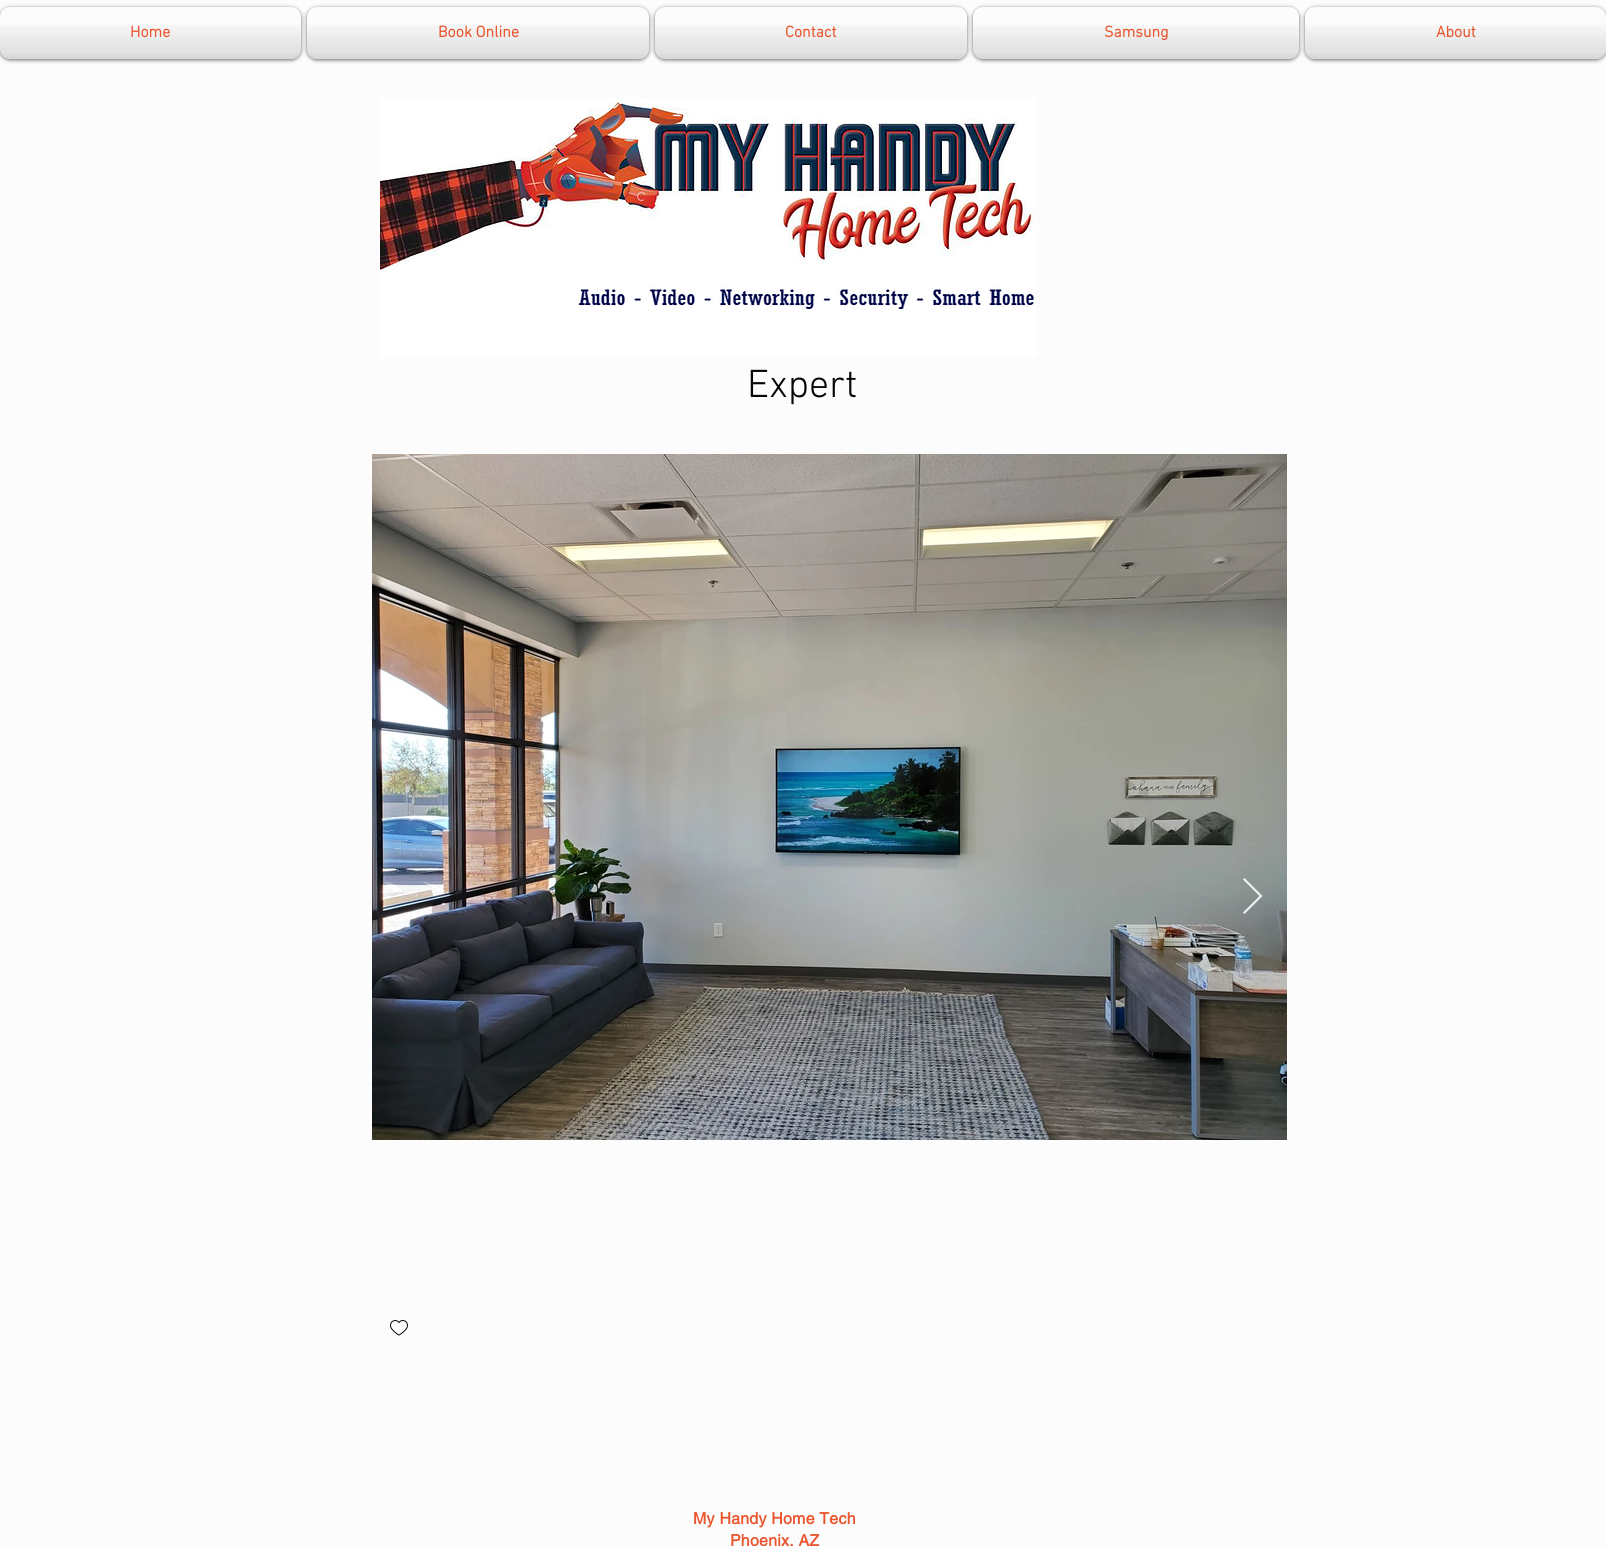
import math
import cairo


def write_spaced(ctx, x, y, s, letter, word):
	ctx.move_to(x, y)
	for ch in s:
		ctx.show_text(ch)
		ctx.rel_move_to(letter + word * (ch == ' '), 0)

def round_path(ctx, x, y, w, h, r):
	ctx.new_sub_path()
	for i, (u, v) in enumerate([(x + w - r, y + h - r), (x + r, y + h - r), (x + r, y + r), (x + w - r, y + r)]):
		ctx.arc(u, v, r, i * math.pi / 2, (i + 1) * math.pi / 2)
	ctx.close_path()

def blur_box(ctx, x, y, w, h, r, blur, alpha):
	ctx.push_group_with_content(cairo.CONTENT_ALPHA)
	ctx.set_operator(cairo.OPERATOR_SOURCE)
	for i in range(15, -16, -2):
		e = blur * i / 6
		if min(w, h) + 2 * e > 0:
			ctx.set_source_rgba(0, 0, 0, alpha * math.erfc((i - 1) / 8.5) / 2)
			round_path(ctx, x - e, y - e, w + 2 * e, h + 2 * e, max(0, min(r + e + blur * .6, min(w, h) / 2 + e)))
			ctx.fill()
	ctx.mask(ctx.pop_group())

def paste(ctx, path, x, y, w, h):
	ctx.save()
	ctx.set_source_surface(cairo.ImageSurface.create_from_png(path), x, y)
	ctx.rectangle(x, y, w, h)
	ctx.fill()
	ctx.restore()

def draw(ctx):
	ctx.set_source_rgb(0.988, 0.988, 0.988)
	ctx.paint()
	ctx.set_source_rgb(0, 0, 0)
	blur_box(ctx, 0, 8, 301, 52, 10, 2, 0.6)
	ctx.set_source_rgb(0.988, 0.988, 0.988)
	round_path(ctx, 0, 7, 301, 52, 10)
	ctx.fill()
	paste(ctx, 'media/1.png', 0, 25, 301, 34)
	ctx.select_font_face('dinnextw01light', cairo.FONT_SLANT_NORMAL, cairo.FONT_WEIGHT_BOLD)
	ctx.set_font_size(16)
	ctx.set_source_rgb(0.914, 0.337, 0.184)
	ctx.move_to(130, 37)
	ctx.show_text('Home')
	ctx.set_source_rgb(0, 0, 0)
	blur_box(ctx, 307, 8, 342, 52, 10, 2, 0.6)
	ctx.set_source_rgb(0.988, 0.988, 0.988)
	round_path(ctx, 307, 7, 342, 52, 10)
	ctx.fill()
	paste(ctx, 'media/2.png', 307, 25, 342, 34)
	ctx.set_source_rgb(0.914, 0.337, 0.184)
	ctx.move_to(438, 37)
	ctx.show_text('Book Online')
	ctx.set_source_rgb(0, 0, 0)
	blur_box(ctx, 655, 8, 312, 52, 10, 2, 0.6)
	ctx.set_source_rgb(0.988, 0.988, 0.988)
	round_path(ctx, 655, 7, 312, 52, 10)
	ctx.fill()
	paste(ctx, 'media/3.png', 655, 25, 312, 34)
	ctx.set_source_rgb(0.914, 0.337, 0.184)
	ctx.move_to(785, 37)
	ctx.show_text('Contact')
	ctx.set_source_rgb(0, 0, 0)
	blur_box(ctx, 973, 8, 326, 52, 10, 2, 0.6)
	ctx.set_source_rgb(0.988, 0.988, 0.988)
	round_path(ctx, 973, 7, 326, 52, 10)
	ctx.fill()
	paste(ctx, 'media/4.png', 973, 25, 326, 34)
	ctx.set_source_rgb(0.914, 0.337, 0.184)
	ctx.move_to(1104, 37)
	ctx.show_text('Samsung')
	ctx.set_source_rgb(0, 0, 0)
	blur_box(ctx, 1305, 8, 301, 52, 10, 2, 0.6)
	ctx.set_source_rgb(0.988, 0.988, 0.988)
	round_path(ctx, 1305, 7, 301, 52, 10)
	ctx.fill()
	paste(ctx, 'media/5.png', 1305, 25, 301, 34)
	ctx.set_source_rgb(0.914, 0.337, 0.184)
	ctx.move_to(1436, 37)
	ctx.show_text('About')
	paste(ctx, 'media/6.png', 380, 98, 657, 259)
	ctx.select_font_face('dinnextw01light Light')
	ctx.set_font_size(40)
	ctx.set_source_rgb(0.02, 0.02, 0.02)
	ctx.move_to(747, 397)
	ctx.show_text('Expert')
	paste(ctx, 'media/7.png', 372, 454, 915, 686)
	paste(ctx, 'media/8.png', 390, 1320, 18, 16)
	ctx.set_source_rgba(0.988, 0.988, 0.988, 0.9)
	ctx.new_path()
	ctx.move_to(1243, 879.5)
	ctx.line_to(1244.5, 878)
	ctx.line_to(1262.5, 896)
	ctx.line_to(1244.5, 914)
	ctx.line_to(1243, 912.5)
	ctx.line_to(1259.5, 896)
	ctx.close_path()
	ctx.fill()
	ctx.select_font_face('helvetica', cairo.FONT_SLANT_NORMAL, cairo.FONT_WEIGHT_BOLD)
	ctx.set_font_size(16)
	ctx.set_source_rgb(0.914, 0.337, 0.184)
	write_spaced(ctx, 693, 1524, 'My Handy Home Tech', 0.2, 0)
	write_spaced(ctx, 730, 1546, 'Phoenix, AZ', 0.2, 0)


surface = cairo.ImageSurface(cairo.FORMAT_RGB24, 1606, 1546)
ctx = cairo.Context(surface)
options = cairo.FontOptions()
options.set_hint_metrics(cairo.HINT_METRICS_OFF)
options.set_hint_style(cairo.HINT_STYLE_NONE)
ctx.set_font_options(options)
ctx.set_miter_limit(4)
draw(ctx)
surface.write_to_png('image.png')
